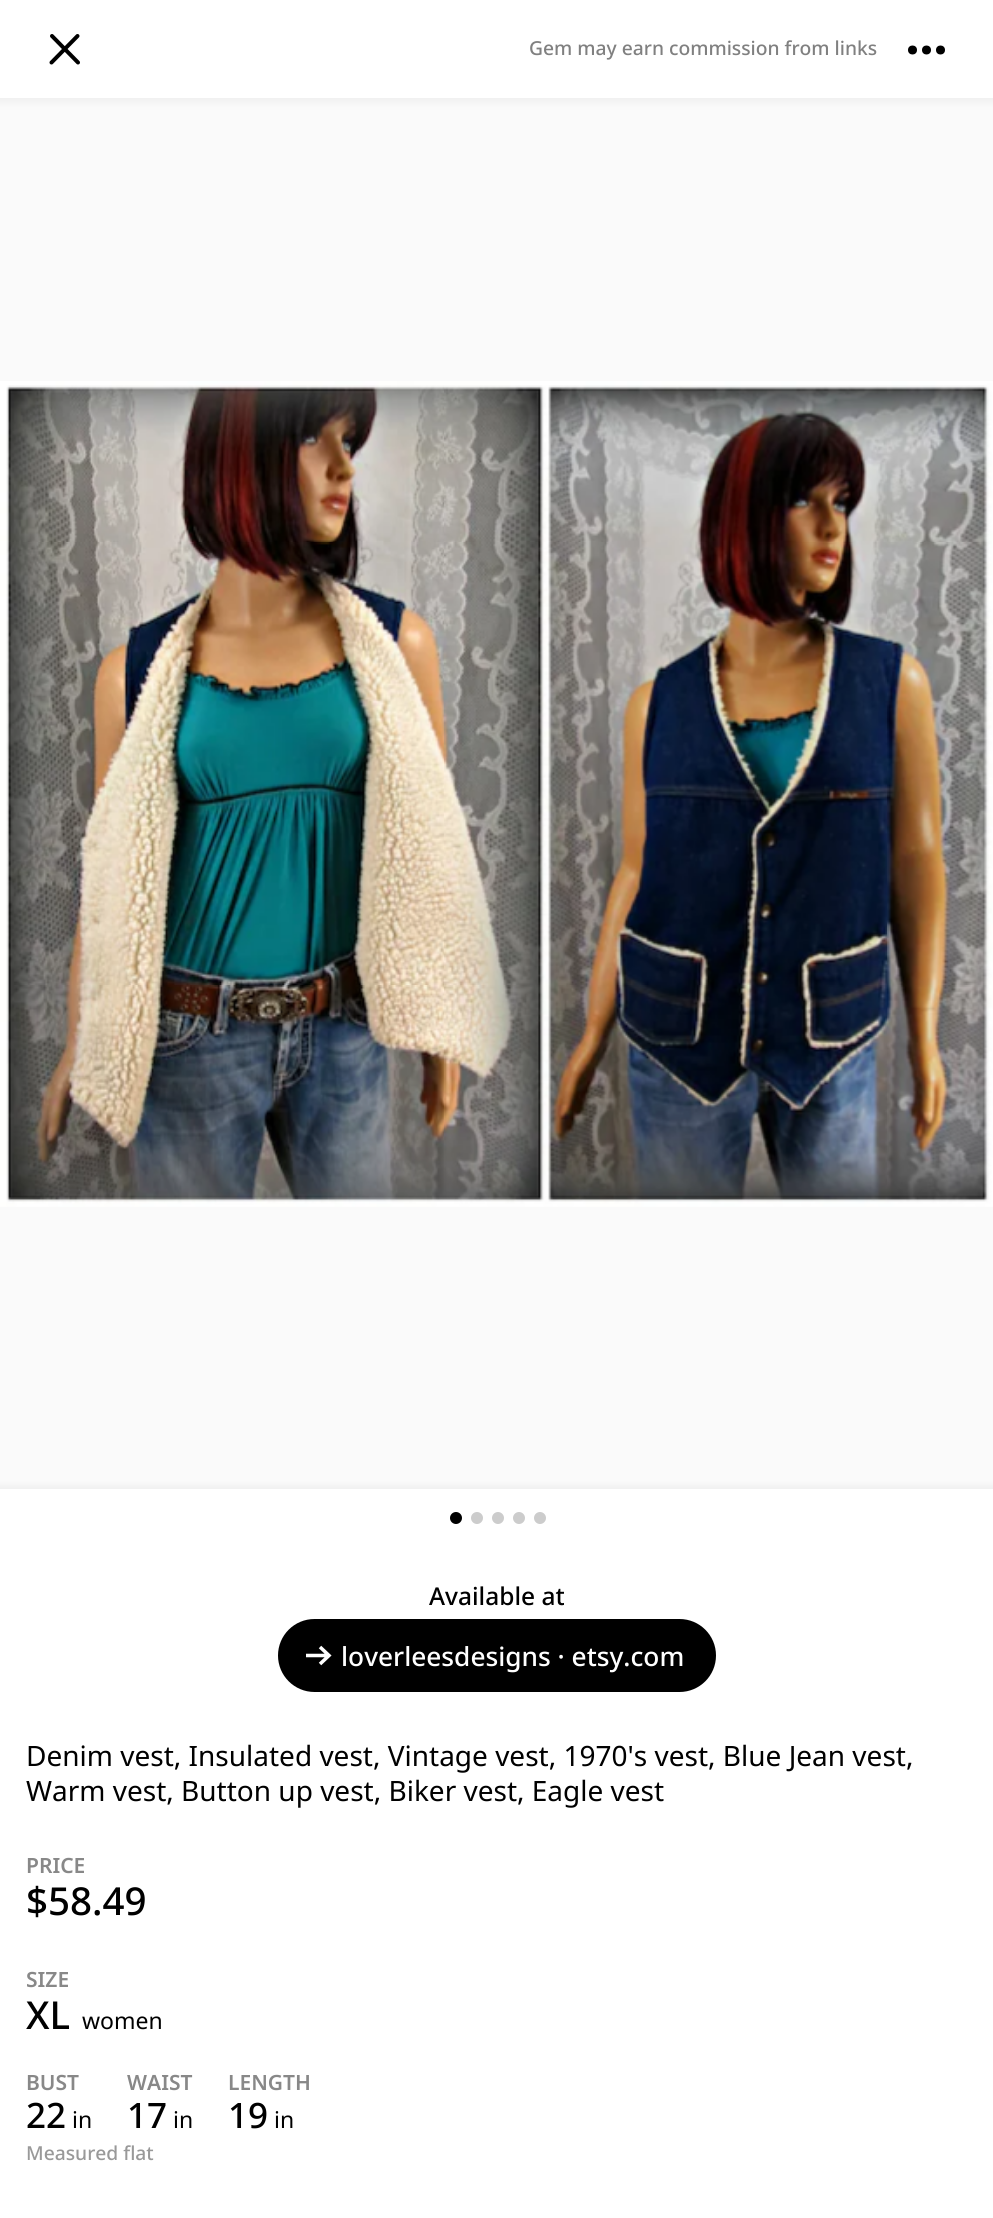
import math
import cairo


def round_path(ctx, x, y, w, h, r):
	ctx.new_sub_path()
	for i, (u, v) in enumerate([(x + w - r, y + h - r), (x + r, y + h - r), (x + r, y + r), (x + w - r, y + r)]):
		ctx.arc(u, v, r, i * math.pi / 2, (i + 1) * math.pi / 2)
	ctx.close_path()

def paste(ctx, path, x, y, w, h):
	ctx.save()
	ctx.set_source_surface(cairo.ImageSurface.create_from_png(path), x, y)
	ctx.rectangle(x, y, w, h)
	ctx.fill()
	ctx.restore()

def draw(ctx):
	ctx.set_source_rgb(1, 1, 1)
	ctx.paint()
	ctx.new_path()
	ctx.move_to(51.5, 62.5)
	ctx.line_to(77.5, 36)
	ctx.move_to(78, 62.5)
	ctx.line_to(52, 36)
	ctx.set_source_rgb(0, 0, 0)
	ctx.set_line_width(4)
	ctx.set_line_cap(cairo.LINE_CAP_ROUND)
	ctx.stroke()
	ctx.select_font_face('Noto Sans Medium')
	ctx.set_font_size(19.25)
	ctx.set_source_rgb(0.502, 0.502, 0.502)
	ctx.move_to(529, 55)
	ctx.show_text('Gem may earn commission from links')
	ctx.set_source_rgb(0, 0, 0)
	ctx.new_path()
	ctx.arc(912.5, 50, 4.5, 0, 2 * math.pi)
	ctx.fill()
	ctx.arc(926.5, 50, 4.5, 0, 2 * math.pi)
	ctx.fill()
	ctx.arc(940.5, 50, 4.5, 0, 2 * math.pi)
	ctx.fill()
	gradient = cairo.LinearGradient(497, 98, 497, 107)
	gradient.add_color_stop_rgba(0, 0.941, 0.941, 0.941, 1)
	gradient.add_color_stop_rgba(1, 0.98, 0.98, 0.98, 1)
	ctx.set_source(gradient)
	ctx.rectangle(0, 98, 993, 9)
	ctx.fill()
	ctx.set_source_rgb(0.98, 0.98, 0.98)
	ctx.rectangle(0, 107, 993, 1374)
	ctx.fill()
	paste(ctx, 'media/1.png', 0, 381, 993, 826)
	gradient = cairo.LinearGradient(497, 1481, 497, 1489)
	gradient.add_color_stop_rgba(0, 0.98, 0.98, 0.98, 1)
	gradient.add_color_stop_rgba(1, 0.941, 0.941, 0.941, 1)
	ctx.set_source(gradient)
	ctx.rectangle(0, 1481, 993, 8)
	ctx.fill()
	ctx.set_source_rgb(0, 0, 0)
	ctx.arc(456, 1518, 6, 0, 2 * math.pi)
	ctx.fill()
	ctx.set_source_rgb(0.8, 0.8, 0.8)
	ctx.arc(477, 1518, 6, 0, 2 * math.pi)
	ctx.fill()
	ctx.arc(498, 1518, 6, 0, 2 * math.pi)
	ctx.fill()
	ctx.arc(519, 1518, 6, 0, 2 * math.pi)
	ctx.fill()
	ctx.arc(540, 1518, 6, 0, 2 * math.pi)
	ctx.fill()
	ctx.set_font_size(24.5)
	ctx.set_source_rgb(0, 0, 0)
	ctx.move_to(429, 1605)
	ctx.show_text('Available at')
	round_path(ctx, 278, 1619, 438, 73, 36.5)
	ctx.fill()
	ctx.new_path()
	ctx.move_to(306, 1655.5)
	ctx.line_to(329, 1655.5)
	ctx.move_to(320, 1647)
	ctx.line_to(329, 1655.5)
	ctx.line_to(320, 1664)
	ctx.set_source_rgb(1, 1, 1)
	ctx.set_line_width(3.5)
	ctx.set_line_cap(cairo.LINE_CAP_BUTT)
	ctx.stroke()
	ctx.set_font_size(26.25)
	ctx.move_to(341, 1666)
	ctx.show_text('loverleesdesigns · etsy.com')
	ctx.select_font_face('Noto Sans')
	ctx.set_font_size(28)
	ctx.set_source_rgb(0, 0, 0)
	ctx.move_to(26, 1766)
	ctx.show_text('Denim vest, Insulated vest, Vintage vest, 1970\'s vest, Blue Jean vest,')
	ctx.move_to(26, 1801)
	ctx.show_text('Warm vest, Button up vest, Biker vest, Eagle vest')
	ctx.select_font_face('Noto Sans SemiBold')
	ctx.set_font_size(21)
	ctx.set_source_rgb(0.533, 0.533, 0.533)
	ctx.move_to(26, 1873)
	ctx.show_text('PRICE')
	ctx.select_font_face('Noto Sans Medium')
	ctx.set_font_size(38.5)
	ctx.set_source_rgb(0, 0, 0)
	ctx.move_to(26, 1915)
	ctx.show_text('$58.49')
	ctx.select_font_face('Noto Sans SemiBold')
	ctx.set_font_size(21)
	ctx.set_source_rgb(0.533, 0.533, 0.533)
	ctx.move_to(26, 1987)
	ctx.show_text('SIZE')
	ctx.select_font_face('Noto Sans Medium')
	ctx.set_font_size(38.5)
	ctx.set_source_rgb(0, 0, 0)
	ctx.move_to(26, 2029)
	ctx.show_text('XL')
	ctx.select_font_face('Noto Sans')
	ctx.set_font_size(23)
	ctx.move_to(82, 2029)
	ctx.show_text('women')
	ctx.select_font_face('Noto Sans SemiBold')
	ctx.set_font_size(21)
	ctx.set_source_rgb(0.533, 0.533, 0.533)
	ctx.move_to(26, 2090)
	ctx.show_text('BUST')
	ctx.select_font_face('Noto Sans Medium')
	ctx.set_font_size(35)
	ctx.set_source_rgb(0, 0, 0)
	ctx.move_to(26, 2128)
	ctx.show_text('22')
	ctx.select_font_face('Noto Sans')
	ctx.set_font_size(23)
	ctx.move_to(72, 2128)
	ctx.show_text('in')
	ctx.select_font_face('Noto Sans SemiBold')
	ctx.set_font_size(21)
	ctx.set_source_rgb(0.533, 0.533, 0.533)
	ctx.move_to(127, 2090)
	ctx.show_text('WAIST')
	ctx.select_font_face('Noto Sans Medium')
	ctx.set_font_size(35)
	ctx.set_source_rgb(0, 0, 0)
	ctx.move_to(127, 2128)
	ctx.show_text('17')
	ctx.select_font_face('Noto Sans')
	ctx.set_font_size(23)
	ctx.move_to(173, 2128)
	ctx.show_text('in')
	ctx.select_font_face('Noto Sans SemiBold')
	ctx.set_font_size(21)
	ctx.set_source_rgb(0.533, 0.533, 0.533)
	ctx.move_to(228, 2090)
	ctx.show_text('LENGTH')
	ctx.select_font_face('Noto Sans Medium')
	ctx.set_font_size(35)
	ctx.set_source_rgb(0, 0, 0)
	ctx.move_to(228, 2128)
	ctx.show_text('19')
	ctx.select_font_face('Noto Sans')
	ctx.set_font_size(23)
	ctx.move_to(274, 2128)
	ctx.show_text('in')
	ctx.select_font_face('Noto Sans Medium')
	ctx.set_font_size(19.25)
	ctx.set_source_rgb(0.6, 0.6, 0.6)
	ctx.move_to(26, 2160)
	ctx.show_text('Measured flat')


surface = cairo.ImageSurface(cairo.FORMAT_RGB24, 993, 2218)
ctx = cairo.Context(surface)
options = cairo.FontOptions()
options.set_hint_metrics(cairo.HINT_METRICS_OFF)
options.set_hint_style(cairo.HINT_STYLE_NONE)
ctx.set_font_options(options)
ctx.set_miter_limit(4)
draw(ctx)
surface.write_to_png('image.png')
